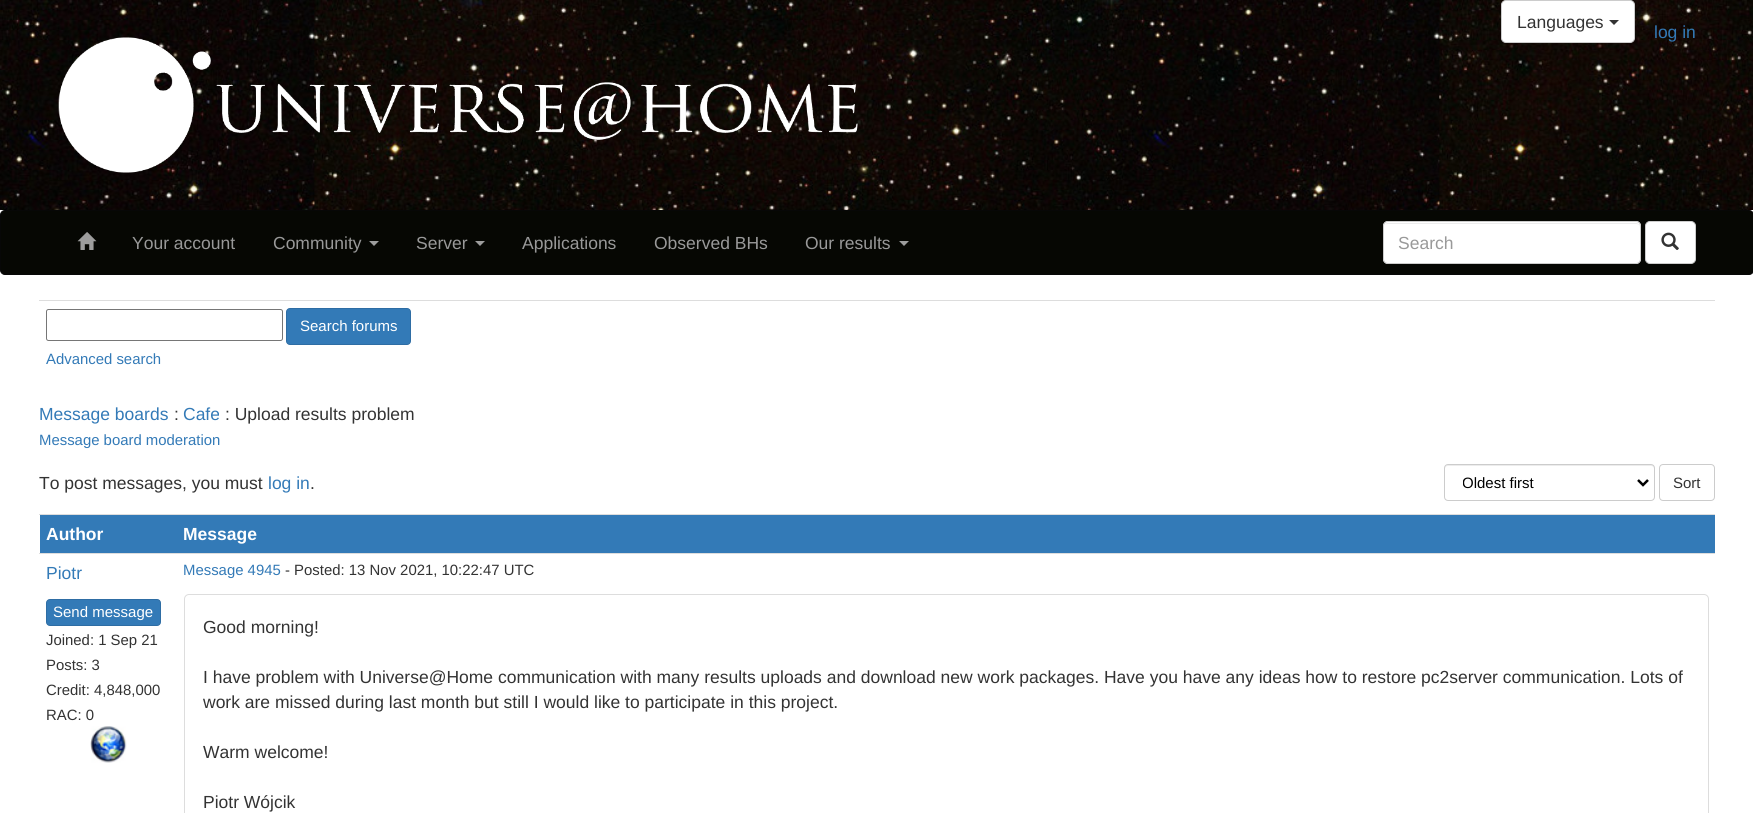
import math
import cairo


def round_path(ctx, x, y, w, h, r):
	ctx.new_sub_path()
	for i, (u, v) in enumerate([(x + w - r, y + h - r), (x + r, y + h - r), (x + r, y + r), (x + w - r, y + r)]):
		ctx.arc(u, v, r, i * math.pi / 2, (i + 1) * math.pi / 2)
	ctx.close_path()

def paste(ctx, path, x, y, w, h):
	ctx.save()
	ctx.set_source_surface(cairo.ImageSurface.create_from_png(path), x, y)
	ctx.rectangle(x, y, w, h)
	ctx.fill()
	ctx.restore()

def draw(ctx):
	ctx.set_source_rgb(1, 1, 1)
	ctx.paint()
	paste(ctx, 'media/1.png', 0, 0, 1753, 210)
	ctx.set_source_rgb(1, 1, 1)
	round_path(ctx, 1501.5, 0.5, 133, 42, 4.5)
	ctx.fill_preserve()
	ctx.set_source_rgb(0.8, 0.8, 0.8)
	ctx.set_line_width(1)
	ctx.stroke()
	ctx.select_font_face('Liberation Sans')
	ctx.set_font_size(17.5)
	ctx.set_source_rgb(0.2, 0.2, 0.2)
	ctx.move_to(1517, 28)
	ctx.show_text('Languages')
	ctx.new_path()
	ctx.move_to(1609, 20)
	ctx.line_to(1619, 20)
	ctx.line_to(1614, 25)
	ctx.close_path()
	ctx.fill()
	ctx.set_source_rgb(0.2, 0.478, 0.718)
	ctx.move_to(1654, 38)
	ctx.show_text('log in')
	paste(ctx, 'media/2.png', 58, 37, 800, 136)
	ctx.set_source_rgb(0.027, 0.031, 0.012)
	round_path(ctx, 0.5, 210.5, 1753, 64, 4.5)
	ctx.fill_preserve()
	ctx.set_source_rgb(0.031, 0.031, 0.031)
	ctx.stroke()
	paste(ctx, 'media/3.png', 77, 232, 20, 18)
	ctx.set_source_rgb(0.6, 0.6, 0.6)
	ctx.move_to(132, 249)
	ctx.show_text('Your account')
	ctx.move_to(273, 249)
	ctx.show_text('Community')
	ctx.set_source_rgb(0.616, 0.616, 0.616)
	ctx.new_path()
	ctx.move_to(369, 241)
	ctx.line_to(379, 241)
	ctx.line_to(374, 246)
	ctx.close_path()
	ctx.fill()
	ctx.set_source_rgb(0.6, 0.6, 0.6)
	ctx.move_to(416, 249)
	ctx.show_text('Server')
	ctx.set_source_rgb(0.616, 0.616, 0.616)
	ctx.new_path()
	ctx.move_to(475, 241)
	ctx.line_to(485, 241)
	ctx.line_to(480, 246)
	ctx.close_path()
	ctx.fill()
	ctx.set_source_rgb(0.6, 0.6, 0.6)
	for x, y, s in [
		(522, 249, 'Applications'),
		(654, 249, 'Observed BHs'),
		(805, 249, 'Our results'),
	]:
		ctx.move_to(x, y)
		ctx.show_text(s)
	ctx.set_source_rgb(0.616, 0.616, 0.616)
	ctx.new_path()
	ctx.move_to(899, 241)
	ctx.line_to(909, 241)
	ctx.line_to(904, 246)
	ctx.close_path()
	ctx.fill()
	ctx.set_source_rgb(1, 1, 1)
	round_path(ctx, 1383, 221, 258, 43, 5)
	ctx.fill()
	ctx.set_source_rgb(0.925, 0.925, 0.925)
	ctx.new_path()
	ctx.move_to(1388, 224)
	ctx.line_to(1636, 224)
	ctx.curve_to(1638, 224, 1640, 225, 1640, 228)
	ctx.line_to(1640, 227)
	ctx.curve_to(1640, 225, 1638, 223, 1636, 223)
	ctx.line_to(1388, 223)
	ctx.curve_to(1386, 223, 1384, 225, 1384, 227)
	ctx.line_to(1384, 228)
	ctx.curve_to(1384, 225, 1385, 224, 1388, 224)
	ctx.close_path()
	ctx.fill()
	round_path(ctx, 1383.5, 221.5, 257, 42, 4.5)
	ctx.set_source_rgb(0.8, 0.8, 0.8)
	ctx.stroke()
	ctx.set_source_rgb(0.6, 0.6, 0.6)
	ctx.move_to(1398, 249)
	ctx.show_text('Search')
	ctx.set_source_rgb(1, 1, 1)
	round_path(ctx, 1645.5, 221.5, 50, 42, 4.5)
	ctx.fill_preserve()
	ctx.set_source_rgb(0.8, 0.8, 0.8)
	ctx.stroke()
	paste(ctx, 'media/4.png', 1661, 232, 18, 18)
	ctx.set_source_rgb(0.867, 0.867, 0.867)
	ctx.rectangle(39, 300, 1676, 1)
	ctx.fill()
	round_path(ctx, 46.5, 309.5, 236, 31, 2)
	ctx.set_source_rgb(0.463, 0.463, 0.463)
	ctx.stroke()
	ctx.set_source_rgb(0.2, 0.478, 0.718)
	round_path(ctx, 286.5, 308.5, 124, 36, 3.5)
	ctx.fill_preserve()
	ctx.set_source_rgb(0.18, 0.427, 0.643)
	ctx.stroke()
	ctx.set_font_size(15)
	ctx.set_source_rgb(1, 1, 1)
	ctx.move_to(300, 331)
	ctx.show_text('Search forums')
	ctx.set_font_size(14.9)
	ctx.set_source_rgb(0.2, 0.478, 0.718)
	ctx.move_to(46, 364)
	ctx.show_text('Advanced search')
	ctx.set_font_size(17.5)
	ctx.move_to(39, 420)
	ctx.show_text('Message boards')
	ctx.set_source_rgb(0.2, 0.2, 0.2)
	ctx.move_to(174, 420)
	ctx.show_text(':')
	ctx.set_source_rgb(0.2, 0.478, 0.718)
	ctx.move_to(183, 420)
	ctx.show_text('Cafe')
	ctx.set_source_rgb(0.2, 0.2, 0.2)
	ctx.move_to(225, 420)
	ctx.show_text(': Upload results problem')
	ctx.set_font_size(14.9)
	ctx.set_source_rgb(0.2, 0.478, 0.718)
	ctx.move_to(39, 445)
	ctx.show_text('Message board moderation')
	ctx.set_font_size(17.5)
	ctx.set_source_rgb(0.2, 0.2, 0.2)
	ctx.move_to(39, 489)
	ctx.show_text('To post messages, you must')
	ctx.set_source_rgb(0.2, 0.478, 0.718)
	ctx.move_to(268, 489)
	ctx.show_text('log in')
	ctx.set_source_rgb(0.2, 0.2, 0.2)
	ctx.move_to(310, 489)
	ctx.show_text('.')
	ctx.set_source_rgb(0.925, 0.925, 0.925)
	ctx.new_path()
	ctx.move_to(1448, 466)
	ctx.line_to(1651, 466)
	ctx.curve_to(1653, 466, 1654, 467, 1654, 469)
	ctx.line_to(1654, 468)
	ctx.curve_to(1654, 466, 1653, 465, 1652, 465)
	ctx.line_to(1448, 465)
	ctx.curve_to(1446, 465, 1445, 466, 1445, 468)
	ctx.line_to(1445, 469)
	ctx.curve_to(1445, 467, 1446, 466, 1448, 466)
	ctx.close_path()
	ctx.fill()
	round_path(ctx, 1444.5, 464.5, 210, 36, 3.5)
	ctx.set_source_rgb(0.8, 0.8, 0.8)
	ctx.stroke()
	ctx.new_path()
	ctx.move_to(1638, 480)
	ctx.line_to(1643, 485)
	ctx.line_to(1648, 480)
	ctx.set_source_rgb(0, 0, 0)
	ctx.set_line_width(2.5)
	ctx.stroke()
	ctx.save()
	ctx.rectangle(1463, 473, 158, 20)
	ctx.clip()
	ctx.set_font_size(15)
	ctx.move_to(1462, 488)
	ctx.show_text('Oldest first')
	ctx.restore()
	round_path(ctx, 1659.5, 464.5, 55, 36, 3.5)
	ctx.set_source_rgb(0.8, 0.8, 0.8)
	ctx.set_line_width(1)
	ctx.stroke()
	ctx.set_font_size(15)
	ctx.set_source_rgb(0.2, 0.2, 0.2)
	ctx.move_to(1673, 488)
	ctx.show_text('Sort')
	ctx.set_source_rgb(0.2, 0.478, 0.718)
	ctx.rectangle(40, 515, 1675, 38)
	ctx.fill()
	ctx.select_font_face('Liberation Sans', cairo.FONT_SLANT_NORMAL, cairo.FONT_WEIGHT_BOLD)
	ctx.set_font_size(17.5)
	ctx.set_source_rgb(1, 1, 1)
	ctx.move_to(46, 540)
	ctx.show_text('Author')
	ctx.set_source_rgb(0.867, 0.867, 0.867)
	ctx.rectangle(39, 514, 1676, 1)
	ctx.fill()
	ctx.set_source_rgb(1, 1, 1)
	ctx.move_to(183, 540)
	ctx.show_text('Message')
	ctx.select_font_face('Liberation Sans')
	ctx.set_source_rgb(0.2, 0.478, 0.718)
	ctx.move_to(46, 579)
	ctx.show_text('Piotr')
	round_path(ctx, 46.5, 599.5, 114, 26, 3.5)
	ctx.fill_preserve()
	ctx.set_source_rgb(0.18, 0.427, 0.643)
	ctx.stroke()
	ctx.set_font_size(15)
	ctx.set_source_rgb(1, 1, 1)
	ctx.move_to(53, 617)
	ctx.show_text('Send message')
	ctx.set_font_size(14.9)
	ctx.set_source_rgb(0.2, 0.2, 0.2)
	for x, y, s in [
		(46, 645, 'Joined: 1 Sep 21'),
		(46, 670, 'Posts: 3'),
		(46, 695, 'Credit: 4,848,000'),
		(46, 720, 'RAC: 0'),
	]:
		ctx.move_to(x, y)
		ctx.show_text(s)
	paste(ctx, 'media/5.png', 90, 726, 37, 37)
	ctx.set_source_rgb(0.867, 0.867, 0.867)
	ctx.rectangle(39, 553, 1676, 1)
	ctx.fill()
	ctx.set_source_rgb(0.2, 0.478, 0.718)
	ctx.move_to(183, 575)
	ctx.show_text('Message 4945')
	ctx.set_source_rgb(0.2, 0.2, 0.2)
	ctx.move_to(285, 575)
	ctx.show_text('- Posted: 13 Nov 2021, 10:22:47 UTC')
	round_path(ctx, 184.5, 594.5, 1524, 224, 4.5)
	ctx.set_source_rgb(0.867, 0.867, 0.867)
	ctx.stroke()
	ctx.set_font_size(17.5)
	ctx.set_source_rgb(0.2, 0.2, 0.2)
	for x, y, s in [
		(203, 633, 'Good morning!'),
		(203, 683, 'I have problem with Universe@Home communication with many results uploads and download new work packages. Have you have any ideas how to restore pc2server communication. Lots of'),
		(203, 708, 'work are missed during last month but still I would like to participate in this project.'),
		(203, 758, 'Warm welcome!'),
		(203, 808, 'Piotr Wójcik'),
	]:
		ctx.move_to(x, y)
		ctx.show_text(s)


surface = cairo.ImageSurface(cairo.FORMAT_RGB24, 1753, 813)
ctx = cairo.Context(surface)
options = cairo.FontOptions()
options.set_hint_metrics(cairo.HINT_METRICS_OFF)
options.set_hint_style(cairo.HINT_STYLE_NONE)
ctx.set_font_options(options)
ctx.set_miter_limit(4)
draw(ctx)
surface.write_to_png('image.png')
